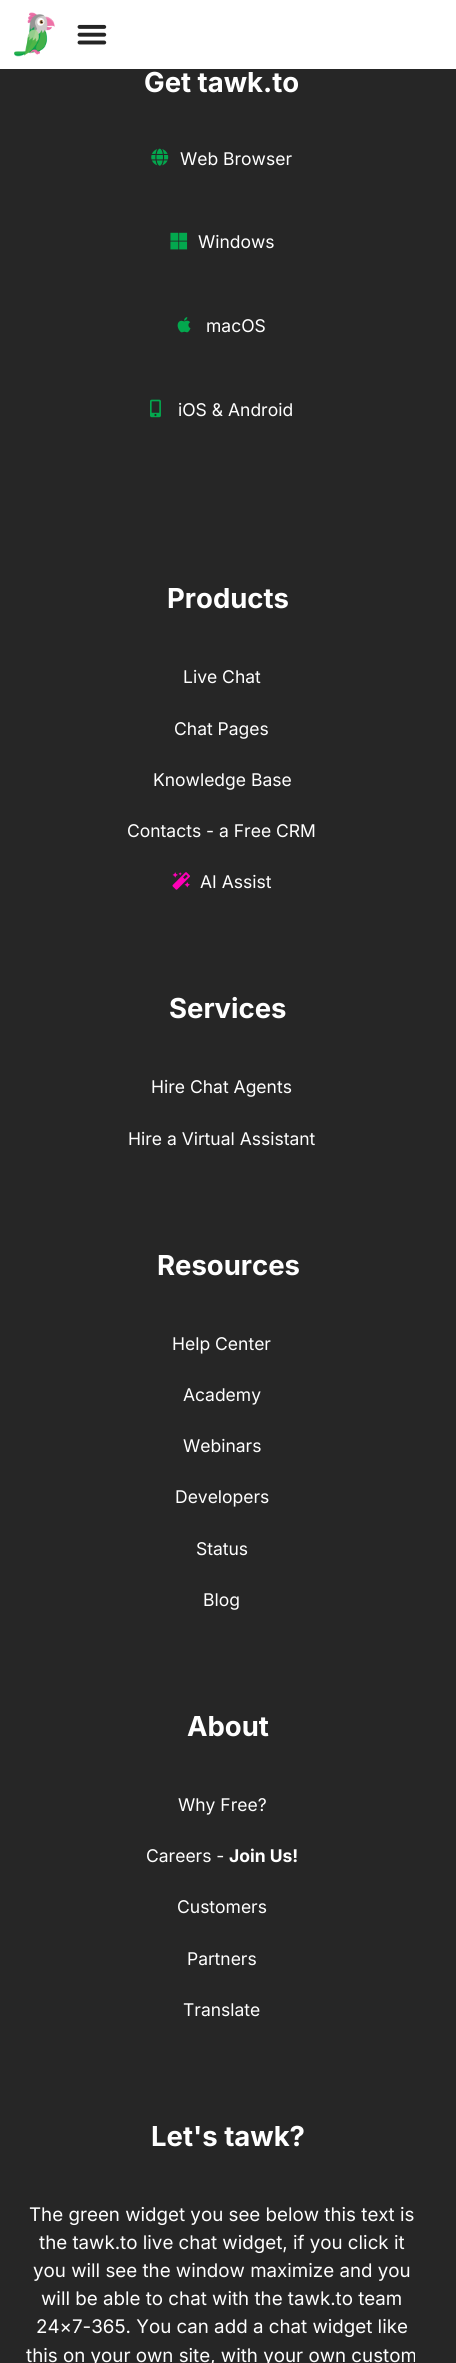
import math
import cairo


def paste(ctx, path, x, y, w, h):
	ctx.save()
	ctx.set_source_surface(cairo.ImageSurface.create_from_png(path), x, y)
	ctx.rectangle(x, y, w, h)
	ctx.fill()
	ctx.restore()

def draw(ctx):
	ctx.set_source_rgb(0.149, 0.149, 0.149)
	ctx.paint()
	ctx.set_source_rgb(1, 1, 1)
	ctx.rectangle(0, 0, 456, 69)
	ctx.fill()
	paste(ctx, 'media/1.png', 14, 12, 41, 45)
	paste(ctx, 'media/2.png', 77, 24, 30, 21)
	ctx.select_font_face('Inter', cairo.FONT_SLANT_NORMAL, cairo.FONT_WEIGHT_BOLD)
	ctx.set_font_size(27.5)
	ctx.move_to(144, 92)
	ctx.show_text('Get tawk.to')
	paste(ctx, 'media/3.png', 151, 148, 18, 18)
	ctx.select_font_face('Inter')
	ctx.set_font_size(17.5)
	ctx.move_to(180, 165)
	ctx.show_text('Web Browser')
	paste(ctx, 'media/4.png', 170, 232, 18, 18)
	ctx.move_to(198, 248)
	ctx.show_text('Windows')
	paste(ctx, 'media/5.png', 177, 317, 14, 16)
	ctx.move_to(206, 332)
	ctx.show_text('macOS')
	paste(ctx, 'media/6.png', 150, 399, 11, 19)
	ctx.move_to(178, 416)
	ctx.show_text('iOS & Android')
	ctx.select_font_face('Inter', cairo.FONT_SLANT_NORMAL, cairo.FONT_WEIGHT_BOLD)
	ctx.set_font_size(27.5)
	ctx.move_to(167, 608)
	ctx.show_text('Products')
	ctx.select_font_face('Inter')
	ctx.set_font_size(17.5)
	for x, y, s in [
		(183, 683, 'Live Chat'),
		(174, 735, 'Chat Pages'),
		(153, 786, 'Knowledge Base'),
		(127, 837, 'Contacts - a Free CRM'),
	]:
		ctx.move_to(x, y)
		ctx.show_text(s)
	paste(ctx, 'media/7.png', 172, 872, 18, 18)
	ctx.move_to(200, 888)
	ctx.show_text('AI Assist')
	ctx.select_font_face('Inter', cairo.FONT_SLANT_NORMAL, cairo.FONT_WEIGHT_BOLD)
	ctx.set_font_size(27.5)
	ctx.move_to(169, 1018)
	ctx.show_text('Services')
	ctx.select_font_face('Inter')
	ctx.set_font_size(17.5)
	ctx.move_to(151, 1093)
	ctx.show_text('Hire Chat Agents')
	ctx.move_to(128, 1145)
	ctx.show_text('Hire a Virtual Assistant')
	ctx.select_font_face('Inter', cairo.FONT_SLANT_NORMAL, cairo.FONT_WEIGHT_BOLD)
	ctx.set_font_size(27.5)
	ctx.move_to(157, 1275)
	ctx.show_text('Resources')
	ctx.select_font_face('Inter')
	ctx.set_font_size(17.5)
	for x, y, s in [
		(172, 1350, 'Help Center'),
		(183, 1401, 'Academy'),
		(183, 1452, 'Webinars'),
		(175, 1503, 'Developers'),
		(196, 1555, 'Status'),
		(203, 1606, 'Blog'),
	]:
		ctx.move_to(x, y)
		ctx.show_text(s)
	ctx.select_font_face('Inter', cairo.FONT_SLANT_NORMAL, cairo.FONT_WEIGHT_BOLD)
	ctx.set_font_size(27.5)
	ctx.move_to(187, 1736)
	ctx.show_text('About')
	ctx.select_font_face('Inter')
	ctx.set_font_size(17.5)
	ctx.move_to(178, 1811)
	ctx.show_text('Why Free?')
	ctx.move_to(146, 1862)
	ctx.show_text('Careers -')
	ctx.select_font_face('Inter', cairo.FONT_SLANT_NORMAL, cairo.FONT_WEIGHT_BOLD)
	ctx.move_to(229, 1862)
	ctx.show_text('Join Us!')
	ctx.select_font_face('Inter')
	for x, y, s in [
		(177, 1913, 'Customers'),
		(187, 1965, 'Partners'),
		(183, 2016, 'Translate'),
	]:
		ctx.move_to(x, y)
		ctx.show_text(s)
	ctx.select_font_face('Inter', cairo.FONT_SLANT_NORMAL, cairo.FONT_WEIGHT_BOLD)
	ctx.set_font_size(27.5)
	ctx.move_to(151, 2146)
	ctx.show_text('Let\'s tawk?')
	ctx.select_font_face('Inter')
	ctx.set_font_size(18.75)
	for x, y, s in [
		(29, 2221, 'The green widget you see below this text is'),
		(39, 2249, 'the tawk.to live chat widget, if you click it'),
		(33, 2277, 'you will see the window maximize and you'),
		(41, 2305, 'will be able to chat with the tawk.to team'),
		(36, 2333, '24×7-365. You can add a chat widget like'),
		(26, 2362, 'this on your own site, with your own custom'),
	]:
		ctx.move_to(x, y)
		ctx.show_text(s)


surface = cairo.ImageSurface(cairo.FORMAT_RGB24, 456, 2363)
ctx = cairo.Context(surface)
options = cairo.FontOptions()
options.set_hint_metrics(cairo.HINT_METRICS_OFF)
options.set_hint_style(cairo.HINT_STYLE_NONE)
ctx.set_font_options(options)
ctx.set_miter_limit(4)
draw(ctx)
surface.write_to_png('image.png')
